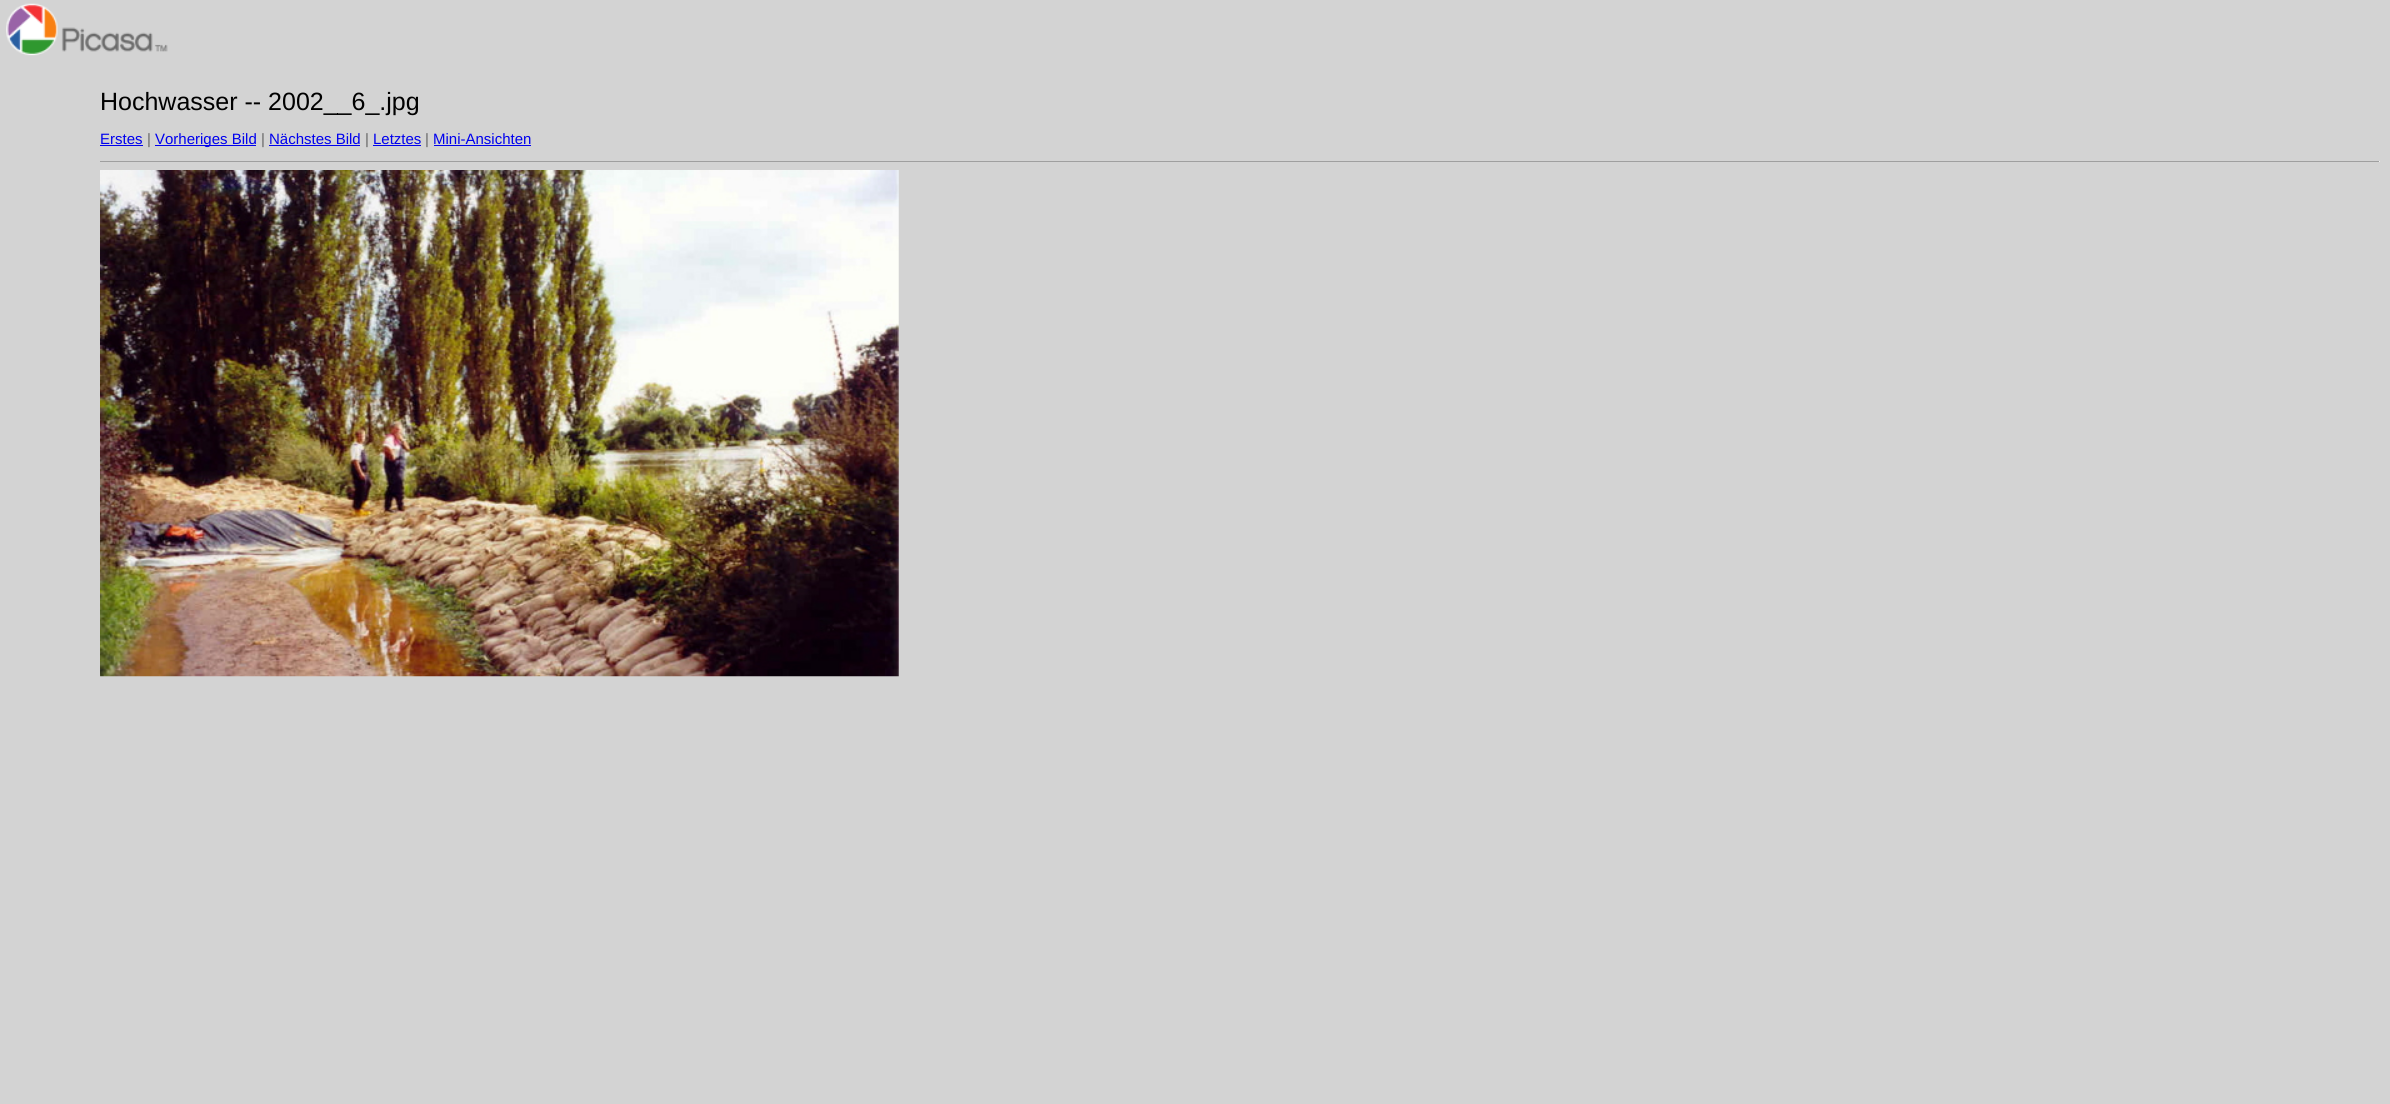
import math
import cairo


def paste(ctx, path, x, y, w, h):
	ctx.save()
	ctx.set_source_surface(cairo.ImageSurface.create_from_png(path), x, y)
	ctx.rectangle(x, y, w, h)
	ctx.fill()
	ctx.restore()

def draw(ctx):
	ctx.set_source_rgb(0.827, 0.827, 0.827)
	ctx.paint()
	paste(ctx, 'media/1.png', 6, 3, 162, 53)
	ctx.select_font_face('Liberation Sans')
	ctx.set_font_size(25)
	ctx.set_source_rgb(0, 0, 0)
	ctx.move_to(100, 110)
	ctx.show_text('Hochwasser -- 2002__6_.jpg')
	ctx.set_font_size(15)
	ctx.set_source_rgb(0, 0, 0.933)
	ctx.move_to(100, 144)
	ctx.show_text('Erstes')
	ctx.rectangle(100, 145, 43, 1)
	ctx.fill()
	ctx.set_source_rgb(0.4, 0.4, 0.4)
	ctx.move_to(147, 144)
	ctx.show_text('|')
	ctx.set_source_rgb(0, 0, 0.933)
	ctx.rectangle(155, 145, 101, 1)
	ctx.fill()
	ctx.move_to(155, 144)
	ctx.show_text('Vorheriges Bild')
	ctx.set_source_rgb(0.4, 0.4, 0.4)
	ctx.move_to(261, 144)
	ctx.show_text('|')
	ctx.set_source_rgb(0, 0, 0.933)
	ctx.move_to(269, 144)
	ctx.show_text('Nächstes Bild')
	ctx.rectangle(269, 145, 91, 1)
	ctx.fill()
	ctx.set_source_rgb(0.4, 0.4, 0.4)
	ctx.move_to(365, 144)
	ctx.show_text('|')
	ctx.set_source_rgb(0, 0, 0.933)
	ctx.move_to(373, 144)
	ctx.show_text('Letztes')
	ctx.rectangle(373, 145, 48, 1)
	ctx.fill()
	ctx.set_source_rgb(0.4, 0.4, 0.4)
	ctx.move_to(425, 144)
	ctx.show_text('|')
	ctx.set_source_rgb(0, 0, 0.933)
	ctx.move_to(433, 144)
	ctx.show_text('Mini-Ansichten')
	ctx.rectangle(434, 145, 97, 1)
	ctx.fill()
	ctx.set_source_rgb(0.624, 0.624, 0.624)
	ctx.rectangle(100, 161, 2280, 1)
	ctx.fill()
	ctx.set_source_rgb(0.933, 0.933, 0.933)
	ctx.rectangle(2379, 161, 1, 1)
	ctx.fill()
	paste(ctx, 'media/2.png', 100, 170, 799, 507)


surface = cairo.ImageSurface(cairo.FORMAT_RGB24, 2390, 1104)
ctx = cairo.Context(surface)
options = cairo.FontOptions()
options.set_hint_metrics(cairo.HINT_METRICS_OFF)
options.set_hint_style(cairo.HINT_STYLE_NONE)
ctx.set_font_options(options)
ctx.set_miter_limit(4)
draw(ctx)
surface.write_to_png('image.png')
